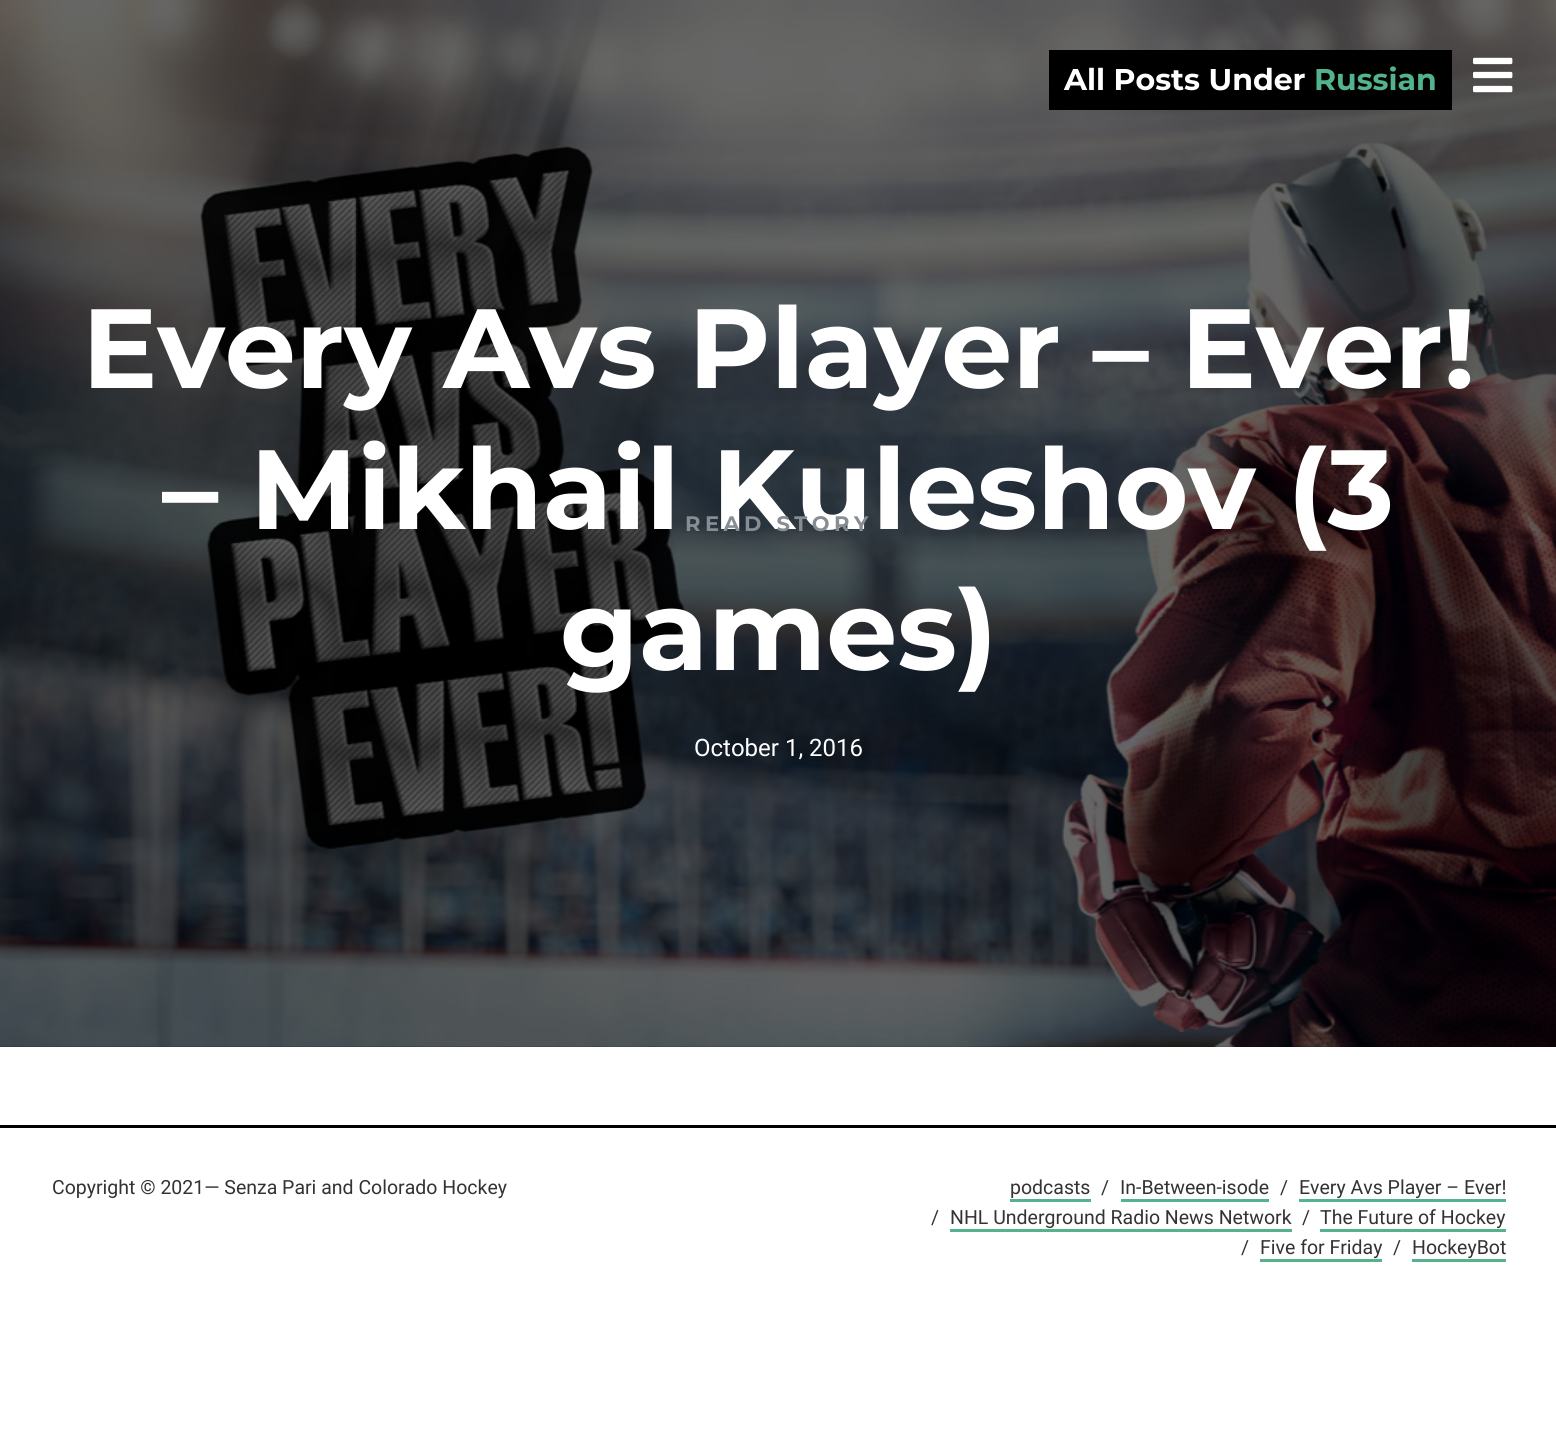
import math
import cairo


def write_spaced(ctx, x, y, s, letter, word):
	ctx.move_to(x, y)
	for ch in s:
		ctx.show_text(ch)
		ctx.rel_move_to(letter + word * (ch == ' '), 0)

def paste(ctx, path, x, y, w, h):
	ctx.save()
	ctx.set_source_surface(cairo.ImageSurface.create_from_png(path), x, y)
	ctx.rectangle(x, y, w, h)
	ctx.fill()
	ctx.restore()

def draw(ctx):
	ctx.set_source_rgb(1, 1, 1)
	ctx.paint()
	ctx.set_source_rgb(0, 0, 0)
	ctx.rectangle(0, 0, 1556, 1047)
	ctx.fill()
	paste(ctx, 'media/2.png', 0, 0, 1556, 1047)
	ctx.rectangle(1049, 50, 403, 60)
	ctx.fill()
	ctx.select_font_face('Montserrat', cairo.FONT_SLANT_NORMAL, cairo.FONT_WEIGHT_BOLD)
	ctx.set_font_size(30)
	ctx.set_source_rgb(1, 1, 1)
	ctx.move_to(1064, 90)
	ctx.show_text('All Posts Under')
	ctx.set_source_rgb(0.325, 0.702, 0.549)
	ctx.move_to(1314, 90)
	ctx.show_text('Russian')
	paste(ctx, 'media/1.png', 1473, 57, 40, 36)
	ctx.set_font_size(112.5)
	ctx.set_source_rgb(1, 1, 1)
	for x, y, s in [
		(82, 388, 'Every Avs Player – Ever!'),
		(162, 529, '– Mikhail Kuleshov (3'),
		(560, 670, 'games)'),
	]:
		ctx.move_to(x, y)
		ctx.show_text(s)
	ctx.set_font_size(21)
	ctx.set_source_rgb(0.529, 0.553, 0.573)
	write_spaced(ctx, 685, 531, 'READ STORY', 4.5, 0)
	ctx.select_font_face('Roboto')
	ctx.set_font_size(24)
	ctx.set_source_rgb(1, 1, 1)
	ctx.move_to(694, 756)
	ctx.show_text('October 1, 2016')
	ctx.set_source_rgb(0, 0, 0)
	ctx.rectangle(0, 1125, 1556, 3)
	ctx.fill()
	ctx.set_font_size(19.5)
	ctx.set_source_rgb(0.2, 0.2, 0.2)
	ctx.move_to(52, 1194)
	ctx.show_text('Copyright © 2021— Senza Pari and Colorado Hockey')
	ctx.move_to(1010, 1194)
	ctx.show_text('podcasts')
	ctx.set_source_rgb(0.325, 0.702, 0.549)
	ctx.rectangle(1010, 1199, 81, 3)
	ctx.fill()
	ctx.set_source_rgb(0.2, 0.2, 0.2)
	ctx.move_to(1101, 1194)
	ctx.show_text('/')
	ctx.move_to(1120, 1194)
	ctx.show_text('In-Between-isode')
	ctx.set_source_rgb(0.325, 0.702, 0.549)
	ctx.rectangle(1121, 1199, 148, 3)
	ctx.fill()
	ctx.set_source_rgb(0.2, 0.2, 0.2)
	ctx.move_to(1280, 1194)
	ctx.show_text('/')
	ctx.move_to(1299, 1194)
	ctx.show_text('Every Avs Player – Ever!')
	ctx.set_source_rgb(0.325, 0.702, 0.549)
	ctx.rectangle(1299, 1199, 207, 3)
	ctx.fill()
	ctx.set_source_rgb(0.2, 0.2, 0.2)
	ctx.move_to(931, 1224)
	ctx.show_text('/')
	ctx.move_to(950, 1224)
	ctx.show_text('NHL Underground Radio News Network')
	ctx.set_source_rgb(0.325, 0.702, 0.549)
	ctx.rectangle(950, 1229, 342, 3)
	ctx.fill()
	ctx.set_source_rgb(0.2, 0.2, 0.2)
	ctx.move_to(1302, 1224)
	ctx.show_text('/')
	ctx.move_to(1320, 1224)
	ctx.show_text('The Future of Hockey')
	ctx.set_source_rgb(0.325, 0.702, 0.549)
	ctx.rectangle(1320, 1229, 186, 3)
	ctx.fill()
	ctx.set_source_rgb(0.2, 0.2, 0.2)
	ctx.move_to(1241, 1254)
	ctx.show_text('/')
	ctx.move_to(1260, 1254)
	ctx.show_text('Five for Friday')
	ctx.set_source_rgb(0.325, 0.702, 0.549)
	ctx.rectangle(1260, 1259, 122, 3)
	ctx.fill()
	ctx.set_source_rgb(0.2, 0.2, 0.2)
	ctx.move_to(1393, 1254)
	ctx.show_text('/')
	ctx.move_to(1412, 1254)
	ctx.show_text('HockeyBot')
	ctx.set_source_rgb(0.325, 0.702, 0.549)
	ctx.rectangle(1412, 1259, 94, 3)
	ctx.fill()


surface = cairo.ImageSurface(cairo.FORMAT_RGB24, 1556, 1451)
ctx = cairo.Context(surface)
options = cairo.FontOptions()
options.set_hint_metrics(cairo.HINT_METRICS_OFF)
options.set_hint_style(cairo.HINT_STYLE_NONE)
ctx.set_font_options(options)
ctx.set_miter_limit(4)
draw(ctx)
surface.write_to_png('image.png')
